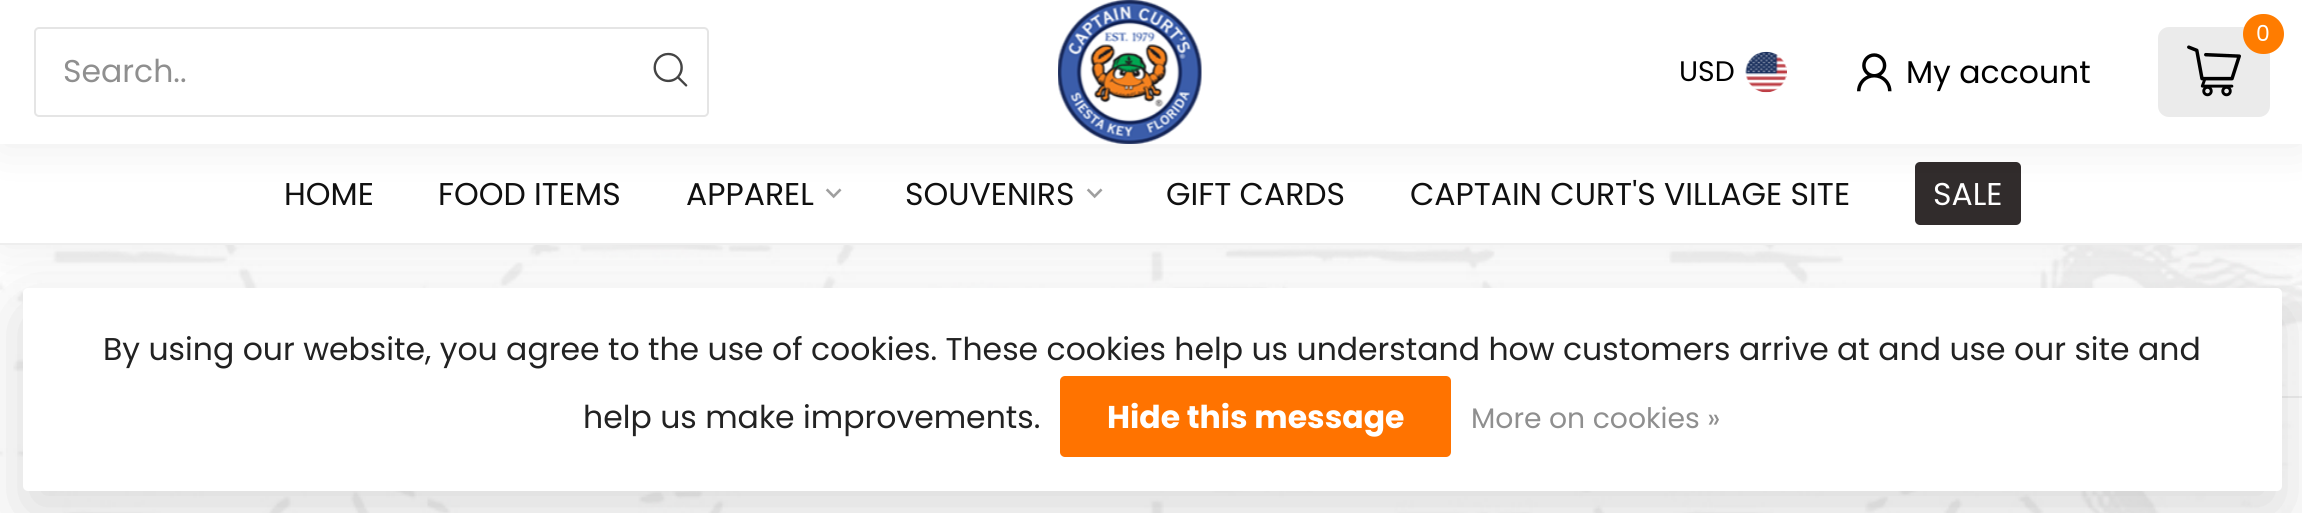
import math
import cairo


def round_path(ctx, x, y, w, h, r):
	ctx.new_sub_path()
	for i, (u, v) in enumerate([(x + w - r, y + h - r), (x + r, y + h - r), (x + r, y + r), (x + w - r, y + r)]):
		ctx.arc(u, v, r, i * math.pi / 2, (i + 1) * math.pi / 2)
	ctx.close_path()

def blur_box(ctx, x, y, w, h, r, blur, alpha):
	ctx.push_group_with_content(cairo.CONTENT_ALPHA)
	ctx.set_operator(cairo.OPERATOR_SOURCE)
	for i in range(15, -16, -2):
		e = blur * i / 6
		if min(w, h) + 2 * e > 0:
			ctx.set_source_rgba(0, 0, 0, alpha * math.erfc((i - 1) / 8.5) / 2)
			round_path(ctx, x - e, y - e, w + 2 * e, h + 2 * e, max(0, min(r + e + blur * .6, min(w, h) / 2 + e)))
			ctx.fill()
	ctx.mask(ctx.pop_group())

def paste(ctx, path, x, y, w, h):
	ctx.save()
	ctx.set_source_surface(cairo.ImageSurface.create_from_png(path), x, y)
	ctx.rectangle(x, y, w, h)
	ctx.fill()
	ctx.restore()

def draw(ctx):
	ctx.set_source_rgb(1, 1, 1)
	ctx.paint()
	paste(ctx, 'media/1.png', 0, 245, 2302, 268)
	ctx.set_source_rgb(0, 0, 0)
	blur_box(ctx, 0, 144, 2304, 101, 0, 25, 0.08)
	ctx.set_source_rgb(1, 1, 1)
	ctx.rectangle(0, 144, 2302, 99)
	ctx.fill()
	paste(ctx, 'media/7.png', 825, 188, 17, 11)
	paste(ctx, 'media/7.png', 1086, 188, 17, 11)
	ctx.set_source_rgb(0.192, 0.173, 0.173)
	round_path(ctx, 1915, 162, 106, 63, 5)
	ctx.fill()
	ctx.set_source_rgb(0, 0, 0)
	blur_box(ctx, 0, -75, 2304, 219, 0, 25, 0.08)
	ctx.set_source_rgb(1, 1, 1)
	ctx.rectangle(0, 0, 2302, 144)
	ctx.fill()
	round_path(ctx, 35, 28, 673, 88, 4)
	ctx.set_source_rgb(0.898, 0.898, 0.898)
	ctx.stroke()
	ctx.select_font_face('Poppins')
	ctx.set_font_size(31.5)
	ctx.set_source_rgb(0.561, 0.561, 0.561)
	ctx.move_to(63, 82)
	ctx.show_text('Search..')
	paste(ctx, 'media/2.png', 653, 52, 35, 35)
	paste(ctx, 'media/3.png', 1058, 0, 144, 144)
	ctx.set_source_rgb(0.918, 0.918, 0.918)
	round_path(ctx, 2158, 27, 112, 90, 11)
	ctx.fill()
	ctx.set_source_rgb(1, 0.486, 0)
	round_path(ctx, 2243, 14, 41, 40, 20)
	ctx.fill()
	ctx.set_font_size(22)
	ctx.set_source_rgb(1, 1, 1)
	ctx.move_to(2256, 41)
	ctx.show_text('0')
	paste(ctx, 'media/4.png', 2187, 45, 54, 52)
	ctx.set_font_size(28.25)
	ctx.set_source_rgb(0, 0, 0)
	ctx.move_to(1679, 81)
	ctx.show_text('USD')
	paste(ctx, 'media/5.png', 1745, 51, 42, 42)
	paste(ctx, 'media/6.png', 1857, 53, 35, 39)
	ctx.set_font_size(31.5)
	ctx.move_to(1906, 83)
	ctx.show_text('My account')
	ctx.set_source_rgb(0.933, 0.933, 0.933)
	ctx.rectangle(0, 243, 2302, 2)
	ctx.fill()
	ctx.set_source_rgb(0.063, 0.063, 0.063)
	for x, y, s in [
		(284, 205, 'HOME'),
		(438, 205, 'FOOD ITEMS'),
		(686, 205, 'APPAREL'),
		(905, 205, 'SOUVENIRS'),
		(1166, 205, 'GIFT CARDS'),
		(1410, 205, 'CAPTAIN CURT\'S VILLAGE SITE'),
	]:
		ctx.move_to(x, y)
		ctx.show_text(s)
	ctx.set_source_rgb(1, 1, 1)
	ctx.move_to(1933, 205)
	ctx.show_text('SALE')
	ctx.set_source_rgba(0.608, 0.608, 0.608, 0.17)
	ctx.rectangle(2282, 396, 20, 2)
	ctx.fill()
	ctx.set_source_rgb(0, 0, 0)
	blur_box(ctx, 23, 311, 2259, 202, 5, 34, 0.15)
	ctx.set_source_rgb(1, 1, 1)
	round_path(ctx, 23, 288, 2259, 203, 5)
	ctx.fill()
	ctx.set_source_rgb(0.133, 0.133, 0.133)
	ctx.move_to(103, 360)
	ctx.show_text('By using our website, you agree to the use of cookies. These cookies help us understand how customers arrive at and use our site and')
	ctx.move_to(583, 428)
	ctx.show_text('help us make improvements.')
	ctx.set_source_rgb(1, 0.451, 0)
	round_path(ctx, 1060, 376, 391, 81, 5)
	ctx.fill()
	ctx.select_font_face('Poppins', cairo.FONT_SLANT_NORMAL, cairo.FONT_WEIGHT_BOLD)
	ctx.set_source_rgb(1, 1, 1)
	ctx.move_to(1107, 428)
	ctx.show_text('Hide this message')
	ctx.select_font_face('Poppins')
	ctx.set_font_size(28.25)
	ctx.set_source_rgb(0.561, 0.561, 0.561)
	ctx.move_to(1471, 428)
	ctx.show_text('More on cookies »')


surface = cairo.ImageSurface(cairo.FORMAT_RGB24, 2302, 513)
ctx = cairo.Context(surface)
options = cairo.FontOptions()
options.set_hint_metrics(cairo.HINT_METRICS_OFF)
options.set_hint_style(cairo.HINT_STYLE_NONE)
ctx.set_font_options(options)
ctx.set_miter_limit(4)
draw(ctx)
surface.write_to_png('image.png')
